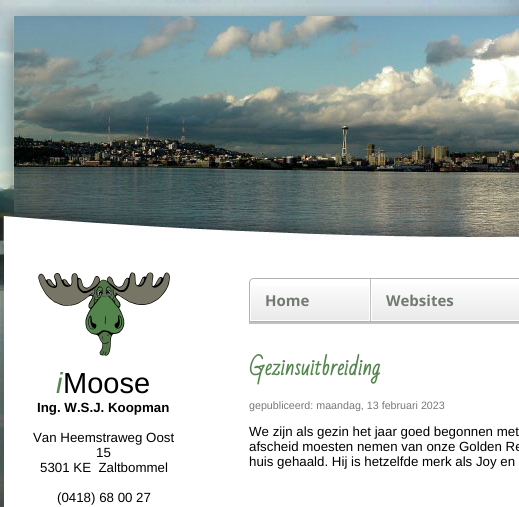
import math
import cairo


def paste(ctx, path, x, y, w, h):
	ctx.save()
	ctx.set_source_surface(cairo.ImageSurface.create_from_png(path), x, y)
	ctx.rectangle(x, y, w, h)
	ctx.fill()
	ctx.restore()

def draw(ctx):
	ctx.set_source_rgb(1, 1, 1)
	ctx.paint()
	paste(ctx, 'media/1.png', 0, 0, 519, 507)
	paste(ctx, 'media/2.png', 0, 6, 519, 238)
	paste(ctx, 'media/3.png', 14, 16, 505, 224)
	paste(ctx, 'media/4.png', 0, 244, 4, 263)
	ctx.set_source_rgb(1, 1, 1)
	ctx.rectangle(4, 244, 515, 263)
	ctx.fill()
	paste(ctx, 'media/5.png', 38, 272, 132, 84)
	ctx.select_font_face('Liberation Sans', cairo.FONT_SLANT_ITALIC)
	ctx.set_font_size(29)
	ctx.set_source_rgb(0.325, 0.522, 0.302)
	ctx.move_to(56, 393)
	ctx.show_text('i')
	ctx.select_font_face('Liberation Sans')
	ctx.set_source_rgb(0, 0, 0)
	ctx.move_to(63, 393)
	ctx.show_text('Moose')
	ctx.select_font_face('Liberation Sans', cairo.FONT_SLANT_NORMAL, cairo.FONT_WEIGHT_BOLD)
	ctx.set_font_size(13.3)
	ctx.move_to(37, 412)
	ctx.show_text('Ing. W.S.J. Koopman')
	ctx.select_font_face('Liberation Sans')
	for x, y, s in [
		(33, 442, 'Van Heemstraweg Oost'),
		(96, 457, '15'),
		(40, 472, '5301 KE  Zaltbommel'),
		(57, 502, '(0418) 68 00 27'),
	]:
		ctx.move_to(x, y)
		ctx.show_text(s)
	ctx.set_source_rgb(0.749, 0.757, 0.761)
	ctx.rectangle(249, 322, 270, 2)
	ctx.fill()
	ctx.new_path()
	ctx.move_to(254, 278.5)
	ctx.line_to(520, 278.5)
	ctx.curve_to(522.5, 278.5, 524.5, 280.5, 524.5, 283)
	ctx.line_to(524.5, 321.5)
	ctx.line_to(249.5, 321.5)
	ctx.line_to(249.5, 283)
	ctx.curve_to(249.5, 280.5, 251.5, 278.5, 254, 278.5)
	ctx.close_path()
	ctx.set_source_rgb(0.698, 0.698, 0.706)
	ctx.set_line_width(1)
	ctx.stroke()
	ctx.set_source_rgb(1, 1, 1)
	ctx.new_path()
	ctx.move_to(255, 279)
	ctx.line_to(370, 279)
	ctx.line_to(370, 321)
	ctx.line_to(250, 321)
	ctx.line_to(250, 284)
	ctx.curve_to(250, 281, 252, 279, 255, 279)
	ctx.close_path()
	ctx.fill()
	gradient = cairo.LinearGradient(310, 279, 310, 321)
	gradient.add_color_stop_rgba(0, 0.333, 0.333, 0.333, 0)
	gradient.add_color_stop_rgba(1, 0.333, 0.333, 0.333, 0.13)
	ctx.set_source(gradient)
	ctx.rectangle(251, 286, 118, 34)
	ctx.fill()
	ctx.new_path()
	ctx.move_to(255, 279.5)
	ctx.line_to(369.5, 279.5)
	ctx.line_to(369.5, 320.5)
	ctx.line_to(250.5, 320.5)
	ctx.line_to(250.5, 284)
	ctx.curve_to(250.5, 281.5, 252.5, 279.5, 255, 279.5)
	ctx.close_path()
	ctx.set_source_rgb(1, 1, 1)
	ctx.stroke()
	ctx.set_source_rgb(0.749, 0.757, 0.761)
	ctx.rectangle(370, 279, 1, 42)
	ctx.fill()
	ctx.select_font_face('Open Sans', cairo.FONT_SLANT_NORMAL, cairo.FONT_WEIGHT_BOLD)
	ctx.set_font_size(15)
	ctx.set_source_rgb(0.443, 0.482, 0.435)
	ctx.move_to(265, 306)
	ctx.show_text('Home')
	gradient = cairo.LinearGradient(450, 279, 450, 321)
	gradient.add_color_stop_rgba(0, 1, 1, 1, 1)
	gradient.add_color_stop_rgba(1, 0.914, 0.914, 0.914, 1)
	ctx.set_source(gradient)
	ctx.rectangle(372, 284, 147, 36)
	ctx.fill()
	ctx.set_source_rgb(0.443, 0.482, 0.435)
	ctx.move_to(386, 306)
	ctx.show_text('Websites')
	ctx.select_font_face('Bad Script', cairo.FONT_SLANT_NORMAL, cairo.FONT_WEIGHT_BOLD)
	ctx.set_font_size(21.25)
	ctx.set_source_rgb(0.325, 0.522, 0.302)
	ctx.move_to(249, 375)
	ctx.show_text('Gezinsuitbreiding')
	ctx.select_font_face('Liberation Sans')
	ctx.set_font_size(10.7)
	ctx.set_source_rgb(0.467, 0.467, 0.467)
	ctx.move_to(249, 409)
	ctx.show_text('gepubliceerd: maandag, 13 februari 2023')
	ctx.set_font_size(13.3)
	ctx.set_source_rgb(0, 0, 0)
	for x, y, s in [
		(249, 436, 'We zijn als gezin het jaar goed begonnen met'),
		(249, 451, 'afscheid moesten nemen van onze Golden Re'),
		(249, 466, 'huis gehaald. Hij is hetzelfde merk als Joy en'),
	]:
		ctx.move_to(x, y)
		ctx.show_text(s)


surface = cairo.ImageSurface(cairo.FORMAT_RGB24, 519, 507)
ctx = cairo.Context(surface)
options = cairo.FontOptions()
options.set_hint_metrics(cairo.HINT_METRICS_OFF)
options.set_hint_style(cairo.HINT_STYLE_NONE)
ctx.set_font_options(options)
ctx.set_miter_limit(4)
draw(ctx)
surface.write_to_png('image.png')
